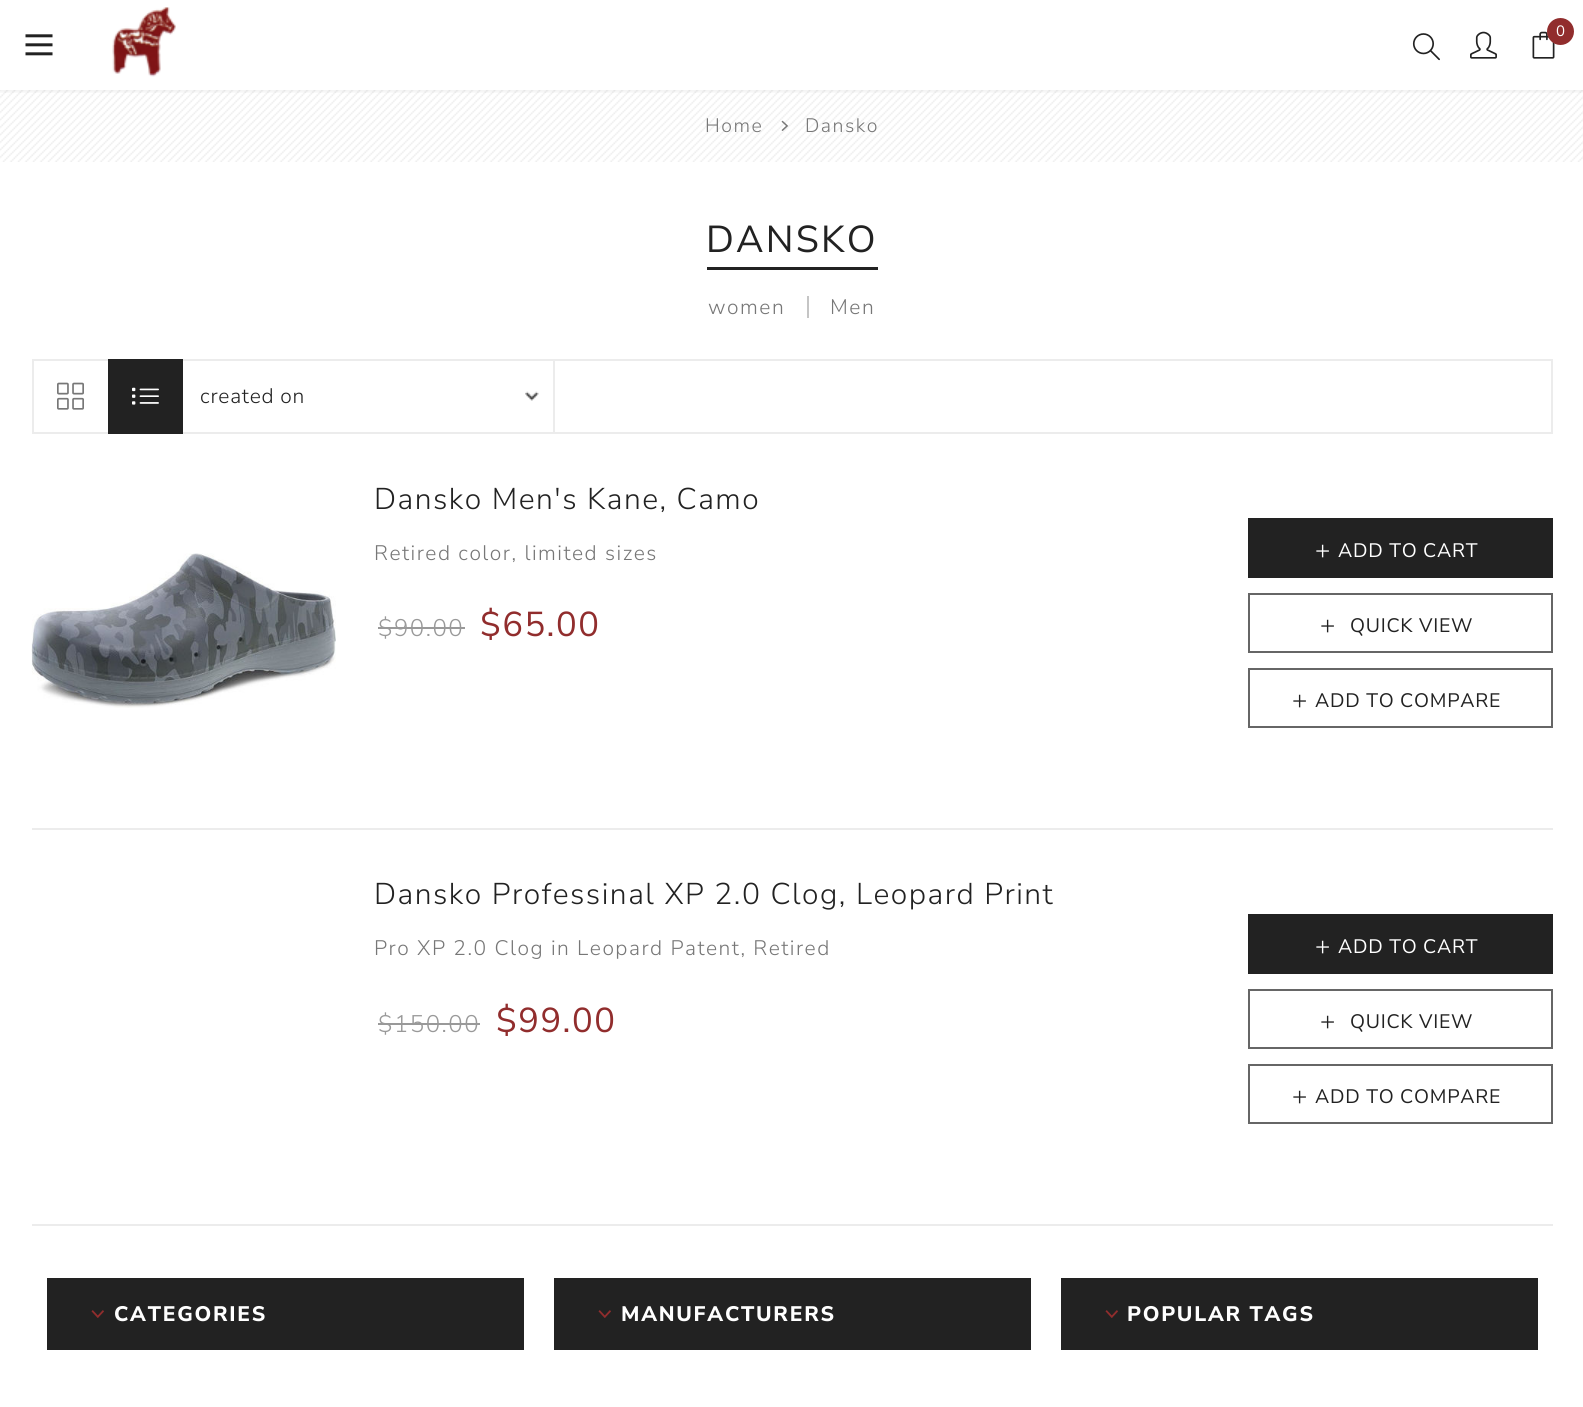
import math
import cairo


def write_spaced(ctx, x, y, s, letter, word):
	ctx.move_to(x, y)
	for ch in s:
		ctx.show_text(ch)
		ctx.rel_move_to(letter + word * (ch == ' '), 0)

def round_path(ctx, x, y, w, h, r):
	ctx.new_sub_path()
	for i, (u, v) in enumerate([(x + w - r, y + h - r), (x + r, y + h - r), (x + r, y + r), (x + w - r, y + r)]):
		ctx.arc(u, v, r, i * math.pi / 2, (i + 1) * math.pi / 2)
	ctx.close_path()

def blur_box(ctx, x, y, w, h, r, blur, alpha):
	ctx.push_group_with_content(cairo.CONTENT_ALPHA)
	ctx.set_operator(cairo.OPERATOR_SOURCE)
	for i in range(15, -16, -2):
		e = blur * i / 6
		if min(w, h) + 2 * e > 0:
			ctx.set_source_rgba(0, 0, 0, alpha * math.erfc((i - 1) / 8.5) / 2)
			round_path(ctx, x - e, y - e, w + 2 * e, h + 2 * e, max(0, min(r + e + blur * .6, min(w, h) / 2 + e)))
			ctx.fill()
	ctx.mask(ctx.pop_group())

def paste(ctx, path, x, y, w, h):
	ctx.save()
	ctx.set_source_surface(cairo.ImageSurface.create_from_png(path), x, y)
	ctx.rectangle(x, y, w, h)
	ctx.fill()
	ctx.restore()

def draw(ctx):
	ctx.set_source_rgb(1, 1, 1)
	ctx.paint()
	paste(ctx, 'media/6.png', 0, 90, 1583, 72)
	ctx.save()
	ctx.rectangle(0, 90, 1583, 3)
	ctx.clip()
	ctx.set_source_rgb(0, 0, 0)
	blur_box(ctx, 0, 0, 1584, 90, 0, 4, 0.1)
	ctx.restore()
	paste(ctx, 'media/1.png', 25, 34, 28, 22)
	paste(ctx, 'media/2.png', 112, 7, 64, 70)
	paste(ctx, 'media/3.png', 1412, 33, 28, 28)
	paste(ctx, 'media/4.png', 1470, 31, 27, 28)
	paste(ctx, 'media/5.png', 1532, 31, 23, 28)
	ctx.set_source_rgb(0.569, 0.176, 0.176)
	ctx.arc(1560.5, 31.5, 13.5, 0, 2 * math.pi)
	ctx.fill()
	ctx.select_font_face('Nunito Sans')
	ctx.set_font_size(15)
	ctx.set_source_rgb(1, 1, 1)
	ctx.move_to(1556, 36)
	ctx.show_text('0')
	ctx.select_font_face('Nunito Sans Light')
	ctx.set_font_size(19.5)
	ctx.set_source_rgb(0.467, 0.467, 0.467)
	write_spaced(ctx, 705, 132, 'Home', 1.5, 0)
	paste(ctx, 'media/7.png', 781, 120, 8, 11)
	write_spaced(ctx, 805, 132, 'Dansko', 1.5, 0)
	ctx.select_font_face('Nunito Sans')
	ctx.set_font_size(37.5)
	ctx.set_source_rgb(0.133, 0.133, 0.133)
	write_spaced(ctx, 706, 252, 'DANSKO', 2.25, 0)
	ctx.rectangle(707, 267, 171, 3)
	ctx.fill()
	ctx.select_font_face('Nunito Sans Light')
	ctx.set_font_size(21)
	ctx.set_source_rgb(0.467, 0.467, 0.467)
	write_spaced(ctx, 708, 314, 'women', 1.5, 0)
	ctx.set_source_rgb(0.773, 0.773, 0.773)
	ctx.rectangle(807, 296, 2, 22)
	ctx.fill()
	ctx.set_source_rgb(0.467, 0.467, 0.467)
	write_spaced(ctx, 830, 314, 'Men', 1.5, 0)
	ctx.rectangle(33, 360, 1519, 73)
	ctx.set_source_rgb(0.922, 0.922, 0.922)
	ctx.stroke()
	paste(ctx, 'media/8.png', 57, 382, 27, 28)
	paste(ctx, 'media/10.png', 525, 391, 14, 10)
	ctx.rectangle(181, 360, 373, 73)
	ctx.stroke()
	ctx.set_source_rgb(0.133, 0.133, 0.133)
	ctx.rectangle(108, 359, 75, 75)
	ctx.fill()
	paste(ctx, 'media/9.png', 132, 387, 27, 18)
	write_spaced(ctx, 200, 403, 'created on', 0.75, 0)
	ctx.set_source_rgb(0.922, 0.922, 0.922)
	ctx.rectangle(32, 828, 1521, 2)
	ctx.fill()
	paste(ctx, 'media/11.png', 31, 553, 305, 155)
	ctx.set_font_size(30)
	ctx.set_source_rgb(0.133, 0.133, 0.133)
	write_spaced(ctx, 374, 509, 'Dansko Men\'s Kane, Camo', 1.5, 0)
	ctx.set_font_size(21)
	ctx.set_source_rgb(0.467, 0.467, 0.467)
	write_spaced(ctx, 374, 560, 'Retired color, limited sizes', 1.5, 0)
	ctx.set_font_size(24)
	ctx.set_source_rgb(0.6, 0.6, 0.6)
	write_spaced(ctx, 378, 636, '$90.00', 1.5, 0)
	ctx.rectangle(378, 627, 87, 2)
	ctx.fill()
	ctx.select_font_face('Nunito Sans')
	ctx.set_font_size(34.5)
	ctx.set_source_rgb(0.569, 0.176, 0.176)
	write_spaced(ctx, 480, 636, '$65.00', 1.5, 0)
	ctx.set_source_rgb(0.133, 0.133, 0.133)
	ctx.rectangle(1248, 518, 305, 60)
	ctx.fill()
	ctx.select_font_face('Liberation Serif')
	ctx.set_font_size(27)
	ctx.set_source_rgb(1, 1, 1)
	write_spaced(ctx, 1315, 560, '+', 0.75, 0)
	ctx.select_font_face('Nunito Sans')
	ctx.set_font_size(19.5)
	write_spaced(ctx, 1338, 557, 'ADD TO CART', 0.75, 0)
	ctx.rectangle(1249, 594, 303, 58)
	ctx.set_source_rgb(0.4, 0.4, 0.4)
	ctx.stroke()
	ctx.select_font_face('Liberation Serif')
	ctx.set_font_size(27)
	ctx.set_source_rgb(0.133, 0.133, 0.133)
	write_spaced(ctx, 1320, 635, '+', 0.75, 0)
	ctx.select_font_face('Nunito Sans')
	ctx.set_font_size(19.5)
	write_spaced(ctx, 1350, 632, 'QUICK VIEW', 0.75, 0)
	ctx.rectangle(1249, 669, 303, 58)
	ctx.set_source_rgb(0.4, 0.4, 0.4)
	ctx.stroke()
	ctx.select_font_face('Liberation Serif')
	ctx.set_font_size(27)
	ctx.set_source_rgb(0.133, 0.133, 0.133)
	write_spaced(ctx, 1292, 710, '+', 0.75, 0)
	ctx.select_font_face('Nunito Sans')
	ctx.set_font_size(19.5)
	write_spaced(ctx, 1315, 707, 'ADD TO COMPARE', 0.75, 0)
	ctx.set_source_rgb(0.922, 0.922, 0.922)
	ctx.rectangle(32, 1224, 1521, 2)
	ctx.fill()
	ctx.select_font_face('Nunito Sans Light')
	ctx.set_font_size(30)
	ctx.set_source_rgb(0.133, 0.133, 0.133)
	write_spaced(ctx, 374, 904, 'Dansko Professinal XP 2.0 Clog, Leopard Print', 1.5, 0)
	ctx.set_font_size(21)
	ctx.set_source_rgb(0.467, 0.467, 0.467)
	write_spaced(ctx, 374, 955, 'Pro XP 2.0 Clog in Leopard Patent, Retired', 1.5, 0)
	ctx.set_font_size(24)
	ctx.set_source_rgb(0.6, 0.6, 0.6)
	write_spaced(ctx, 378, 1032, '$150.00', 1.5, 0)
	ctx.rectangle(378, 1023, 102, 2)
	ctx.fill()
	ctx.select_font_face('Nunito Sans')
	ctx.set_font_size(34.5)
	ctx.set_source_rgb(0.569, 0.176, 0.176)
	write_spaced(ctx, 496, 1032, '$99.00', 1.5, 0)
	ctx.set_source_rgb(0.133, 0.133, 0.133)
	ctx.rectangle(1248, 914, 305, 60)
	ctx.fill()
	ctx.select_font_face('Liberation Serif')
	ctx.set_font_size(27)
	ctx.set_source_rgb(1, 1, 1)
	write_spaced(ctx, 1315, 956, '+', 0.75, 0)
	ctx.select_font_face('Nunito Sans')
	ctx.set_font_size(19.5)
	write_spaced(ctx, 1338, 953, 'ADD TO CART', 0.75, 0)
	ctx.rectangle(1249, 990, 303, 58)
	ctx.set_source_rgb(0.4, 0.4, 0.4)
	ctx.stroke()
	ctx.select_font_face('Liberation Serif')
	ctx.set_font_size(27)
	ctx.set_source_rgb(0.133, 0.133, 0.133)
	write_spaced(ctx, 1320, 1031, '+', 0.75, 0)
	ctx.select_font_face('Nunito Sans')
	ctx.set_font_size(19.5)
	write_spaced(ctx, 1350, 1028, 'QUICK VIEW', 0.75, 0)
	ctx.rectangle(1249, 1065, 303, 58)
	ctx.set_source_rgb(0.4, 0.4, 0.4)
	ctx.stroke()
	ctx.select_font_face('Liberation Serif')
	ctx.set_font_size(27)
	ctx.set_source_rgb(0.133, 0.133, 0.133)
	write_spaced(ctx, 1292, 1106, '+', 0.75, 0)
	ctx.select_font_face('Nunito Sans')
	ctx.set_font_size(19.5)
	write_spaced(ctx, 1315, 1103, 'ADD TO COMPARE', 0.75, 0)
	ctx.rectangle(47, 1278, 477, 72)
	ctx.fill()
	paste(ctx, 'media/12.png', 91, 1310, 13, 8)
	ctx.select_font_face('Nunito Sans ExtraBold')
	ctx.set_font_size(21)
	ctx.set_source_rgb(1, 1, 1)
	write_spaced(ctx, 114, 1321, 'CATEGORIES', 1.75, 0)
	ctx.set_source_rgb(0.133, 0.133, 0.133)
	ctx.rectangle(554, 1278, 477, 72)
	ctx.fill()
	paste(ctx, 'media/12.png', 598, 1310, 13, 8)
	ctx.set_source_rgb(1, 1, 1)
	write_spaced(ctx, 621, 1321, 'MANUFACTURERS', 1.75, 0)
	ctx.set_source_rgb(0.133, 0.133, 0.133)
	ctx.rectangle(1061, 1278, 477, 72)
	ctx.fill()
	paste(ctx, 'media/12.png', 1105, 1310, 13, 8)
	ctx.set_source_rgb(1, 1, 1)
	write_spaced(ctx, 1127, 1321, 'POPULAR TAGS', 1.75, 0)


surface = cairo.ImageSurface(cairo.FORMAT_RGB24, 1583, 1407)
ctx = cairo.Context(surface)
options = cairo.FontOptions()
options.set_hint_metrics(cairo.HINT_METRICS_OFF)
options.set_hint_style(cairo.HINT_STYLE_NONE)
ctx.set_font_options(options)
ctx.set_miter_limit(4)
draw(ctx)
surface.write_to_png('image.png')
